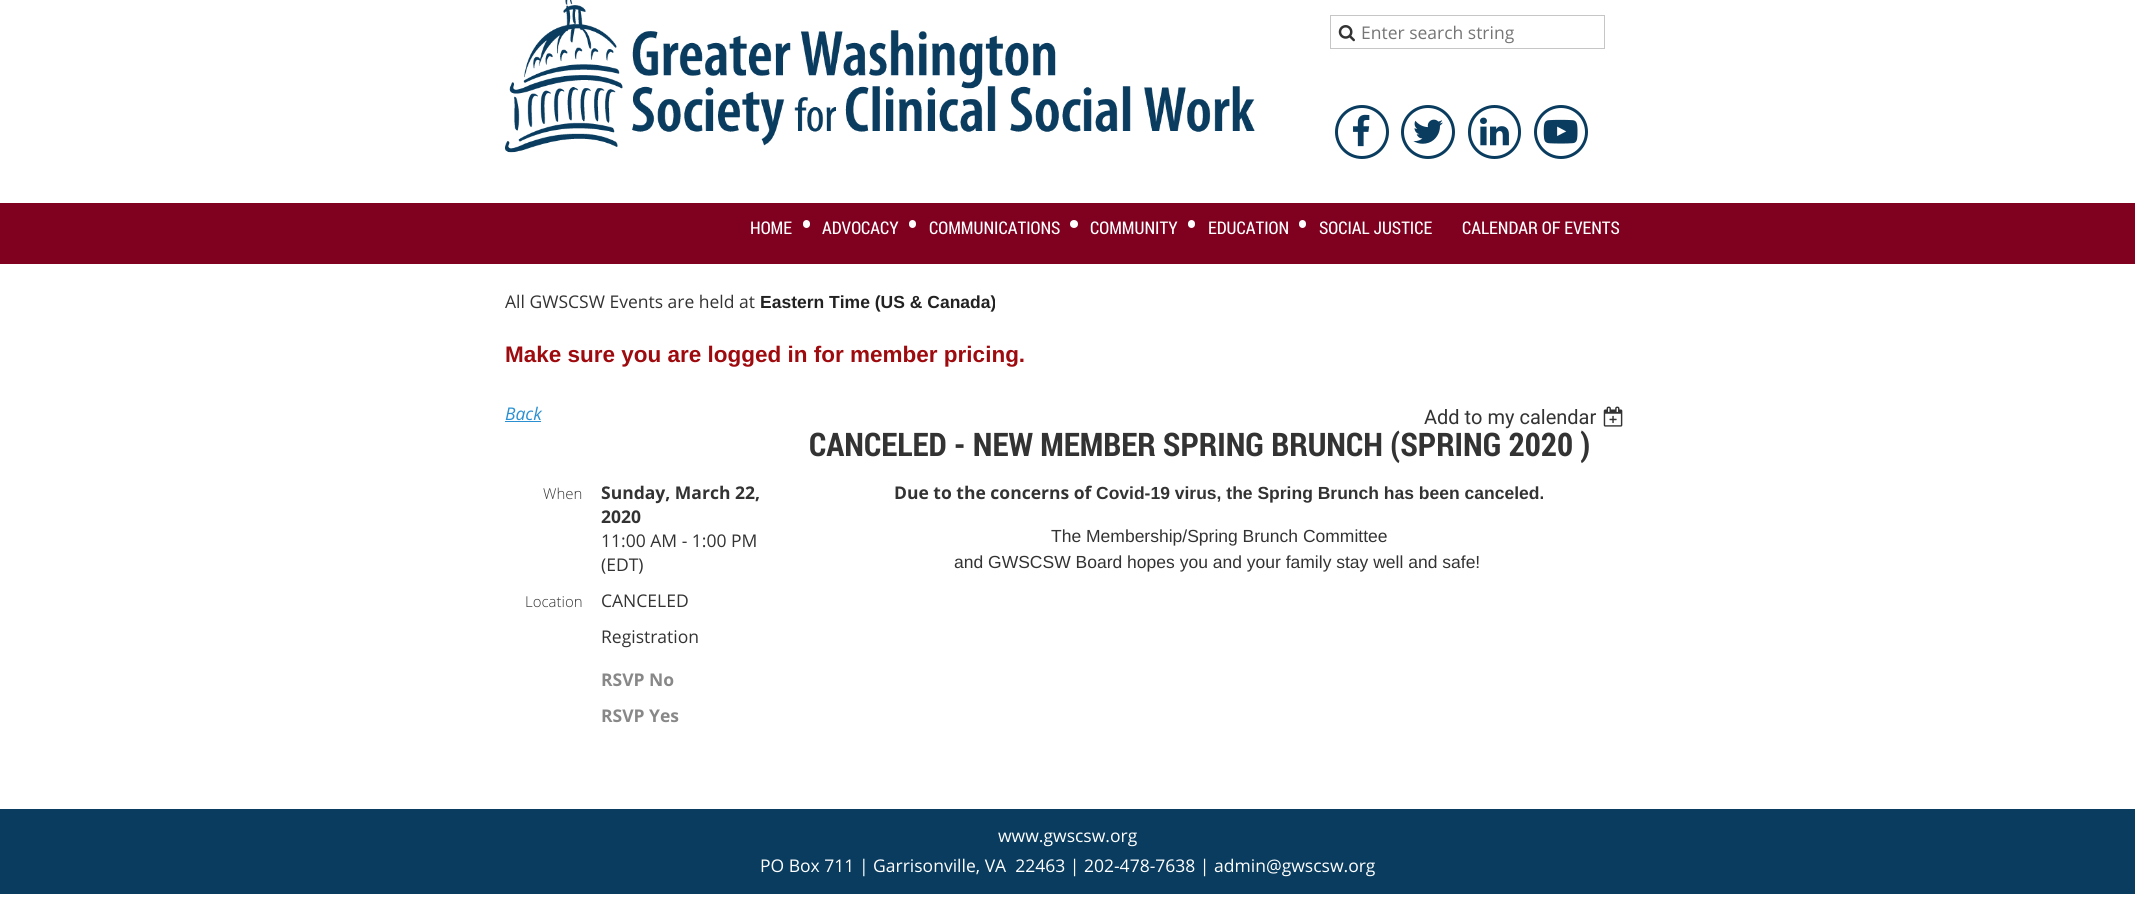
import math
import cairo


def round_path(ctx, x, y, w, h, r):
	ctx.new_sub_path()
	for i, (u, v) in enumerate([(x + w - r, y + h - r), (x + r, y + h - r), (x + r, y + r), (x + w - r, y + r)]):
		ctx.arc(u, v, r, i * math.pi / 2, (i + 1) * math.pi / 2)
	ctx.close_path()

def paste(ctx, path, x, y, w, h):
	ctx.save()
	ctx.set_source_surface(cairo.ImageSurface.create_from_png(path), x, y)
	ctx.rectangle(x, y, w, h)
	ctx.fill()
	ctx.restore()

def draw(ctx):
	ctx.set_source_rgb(1, 1, 1)
	ctx.paint()
	paste(ctx, 'media/1.png', 505, 0, 750, 153)
	ctx.rectangle(1330.5, 15.5, 274, 33)
	ctx.set_source_rgb(0.776, 0.776, 0.776)
	ctx.set_line_width(1)
	ctx.stroke()
	paste(ctx, 'media/2.png', 1338, 25, 17, 17)
	ctx.select_font_face('Open Sans')
	ctx.set_font_size(17.5)
	ctx.set_source_rgb(0.459, 0.459, 0.459)
	ctx.move_to(1361, 39)
	ctx.show_text('Enter search string')
	ctx.new_path()
	ctx.arc(1362, 132, 25.5, 0, 2 * math.pi)
	ctx.set_source_rgb(0.039, 0.235, 0.373)
	ctx.set_line_width(3)
	ctx.stroke()
	paste(ctx, 'media/3.png', 1353, 114, 17, 33)
	ctx.arc(1428, 132, 25.5, 0, 2 * math.pi)
	ctx.stroke()
	paste(ctx, 'media/4.png', 1413, 119, 30, 25)
	round_path(ctx, 1469.5, 106.5, 50, 51, 25)
	ctx.stroke()
	paste(ctx, 'media/5.png', 1480, 117, 29, 29)
	ctx.arc(1561, 132, 25.5, 0, 2 * math.pi)
	ctx.stroke()
	paste(ctx, 'media/6.png', 1543, 119, 35, 25)
	ctx.set_source_rgb(0.502, 0, 0.125)
	ctx.rectangle(0, 203, 2135, 61)
	ctx.fill()
	ctx.select_font_face('Roboto Condensed')
	ctx.set_source_rgb(1, 1, 1)
	ctx.move_to(750, 234)
	ctx.show_text('HOME')
	round_path(ctx, 803, 220, 7, 8, 3.5)
	ctx.fill()
	ctx.move_to(822, 234)
	ctx.show_text('ADVOCACY')
	round_path(ctx, 909, 220, 7, 8, 3.5)
	ctx.fill()
	ctx.move_to(929, 234)
	ctx.show_text('COMMUNICATIONS')
	ctx.new_path()
	ctx.arc(1074, 224, 4, 0, 2 * math.pi)
	ctx.fill()
	ctx.move_to(1090, 234)
	ctx.show_text('COMMUNITY')
	round_path(ctx, 1188, 220, 7, 8, 3.5)
	ctx.fill()
	ctx.move_to(1208, 234)
	ctx.show_text('EDUCATION')
	round_path(ctx, 1299, 220, 7, 8, 3.5)
	ctx.fill()
	ctx.move_to(1319, 234)
	ctx.show_text('SOCIAL JUSTICE')
	ctx.move_to(1462, 234)
	ctx.show_text('CALENDAR OF EVENTS')
	ctx.select_font_face('Open Sans')
	ctx.set_source_rgb(0.2, 0.2, 0.2)
	ctx.move_to(505, 308)
	ctx.show_text('All GWSCSW Events are held at')
	ctx.select_font_face('Liberation Sans', cairo.FONT_SLANT_NORMAL, cairo.FONT_WEIGHT_BOLD)
	ctx.set_source_rgb(0.133, 0.133, 0.133)
	ctx.move_to(760, 308)
	ctx.show_text('Eastern Time (US & Canada)')
	ctx.set_font_size(22.5)
	ctx.set_source_rgb(0.62, 0.043, 0.059)
	ctx.move_to(505, 362)
	ctx.show_text('Make sure you are logged in for member pricing.')
	ctx.select_font_face('Open Sans', cairo.FONT_SLANT_ITALIC)
	ctx.set_font_size(17.5)
	ctx.set_source_rgb(0.169, 0.565, 0.82)
	ctx.move_to(505, 420)
	ctx.show_text('Back')
	ctx.rectangle(505, 421, 36, 1)
	ctx.fill()
	ctx.select_font_face('Roboto')
	ctx.set_font_size(20)
	ctx.set_source_rgb(0.2, 0.2, 0.2)
	ctx.move_to(1424, 424)
	ctx.show_text('Add to my calendar')
	paste(ctx, 'media/7.png', 1603, 406, 20, 21)
	ctx.select_font_face('Roboto Condensed', cairo.FONT_SLANT_NORMAL, cairo.FONT_WEIGHT_BOLD)
	ctx.set_font_size(32.5)
	ctx.move_to(809, 456)
	ctx.show_text('CANCELED - NEW MEMBER SPRING BRUNCH (SPRING 2020 )')
	ctx.select_font_face('Open Sans Light')
	ctx.set_font_size(15)
	ctx.move_to(543, 499)
	ctx.show_text('When')
	ctx.select_font_face('Open Sans', cairo.FONT_SLANT_NORMAL, cairo.FONT_WEIGHT_BOLD)
	ctx.set_font_size(17.5)
	ctx.move_to(601, 499)
	ctx.show_text('Sunday, March 22,')
	ctx.move_to(601, 523)
	ctx.show_text('2020')
	ctx.select_font_face('Open Sans')
	ctx.move_to(601, 547)
	ctx.show_text('11:00 AM - 1:00 PM')
	ctx.move_to(601, 571)
	ctx.show_text('(EDT)')
	ctx.select_font_face('Open Sans Light')
	ctx.set_font_size(15)
	ctx.move_to(525, 607)
	ctx.show_text('Location')
	ctx.select_font_face('Open Sans')
	ctx.set_font_size(17.5)
	ctx.move_to(601, 607)
	ctx.show_text('CANCELED')
	ctx.move_to(601, 643)
	ctx.show_text('Registration')
	ctx.select_font_face('Open Sans', cairo.FONT_SLANT_NORMAL, cairo.FONT_WEIGHT_BOLD)
	ctx.set_source_rgb(0.533, 0.533, 0.533)
	ctx.move_to(601, 686)
	ctx.show_text('RSVP No')
	ctx.move_to(601, 722)
	ctx.show_text('RSVP Yes')
	ctx.set_source_rgb(0.2, 0.2, 0.2)
	ctx.move_to(894, 499)
	ctx.show_text('Due to the concerns of')
	ctx.select_font_face('Liberation Sans', cairo.FONT_SLANT_NORMAL, cairo.FONT_WEIGHT_BOLD)
	ctx.move_to(1096, 499)
	ctx.show_text('Covid-19 virus, the Spring Brunch has been canceled.')
	ctx.select_font_face('Liberation Sans')
	ctx.move_to(1051, 542)
	ctx.show_text('The Membership/Spring Brunch Committee')
	ctx.move_to(954, 568)
	ctx.show_text('and GWSCSW Board hopes you and your family stay well and safe!')
	ctx.set_source_rgb(0.039, 0.235, 0.373)
	ctx.rectangle(0, 809, 2135, 85)
	ctx.fill()
	ctx.select_font_face('Open Sans')
	ctx.set_source_rgb(1, 1, 1)
	ctx.move_to(998, 842)
	ctx.show_text('www.gwscsw.org')
	ctx.move_to(760, 872)
	ctx.show_text('PO Box 711 | Garrisonville, VA  22463 | 202-478-7638 | admin@gwscsw.org')


surface = cairo.ImageSurface(cairo.FORMAT_RGB24, 2135, 907)
ctx = cairo.Context(surface)
options = cairo.FontOptions()
options.set_hint_metrics(cairo.HINT_METRICS_OFF)
options.set_hint_style(cairo.HINT_STYLE_NONE)
ctx.set_font_options(options)
ctx.set_miter_limit(4)
draw(ctx)
surface.write_to_png('image.png')
